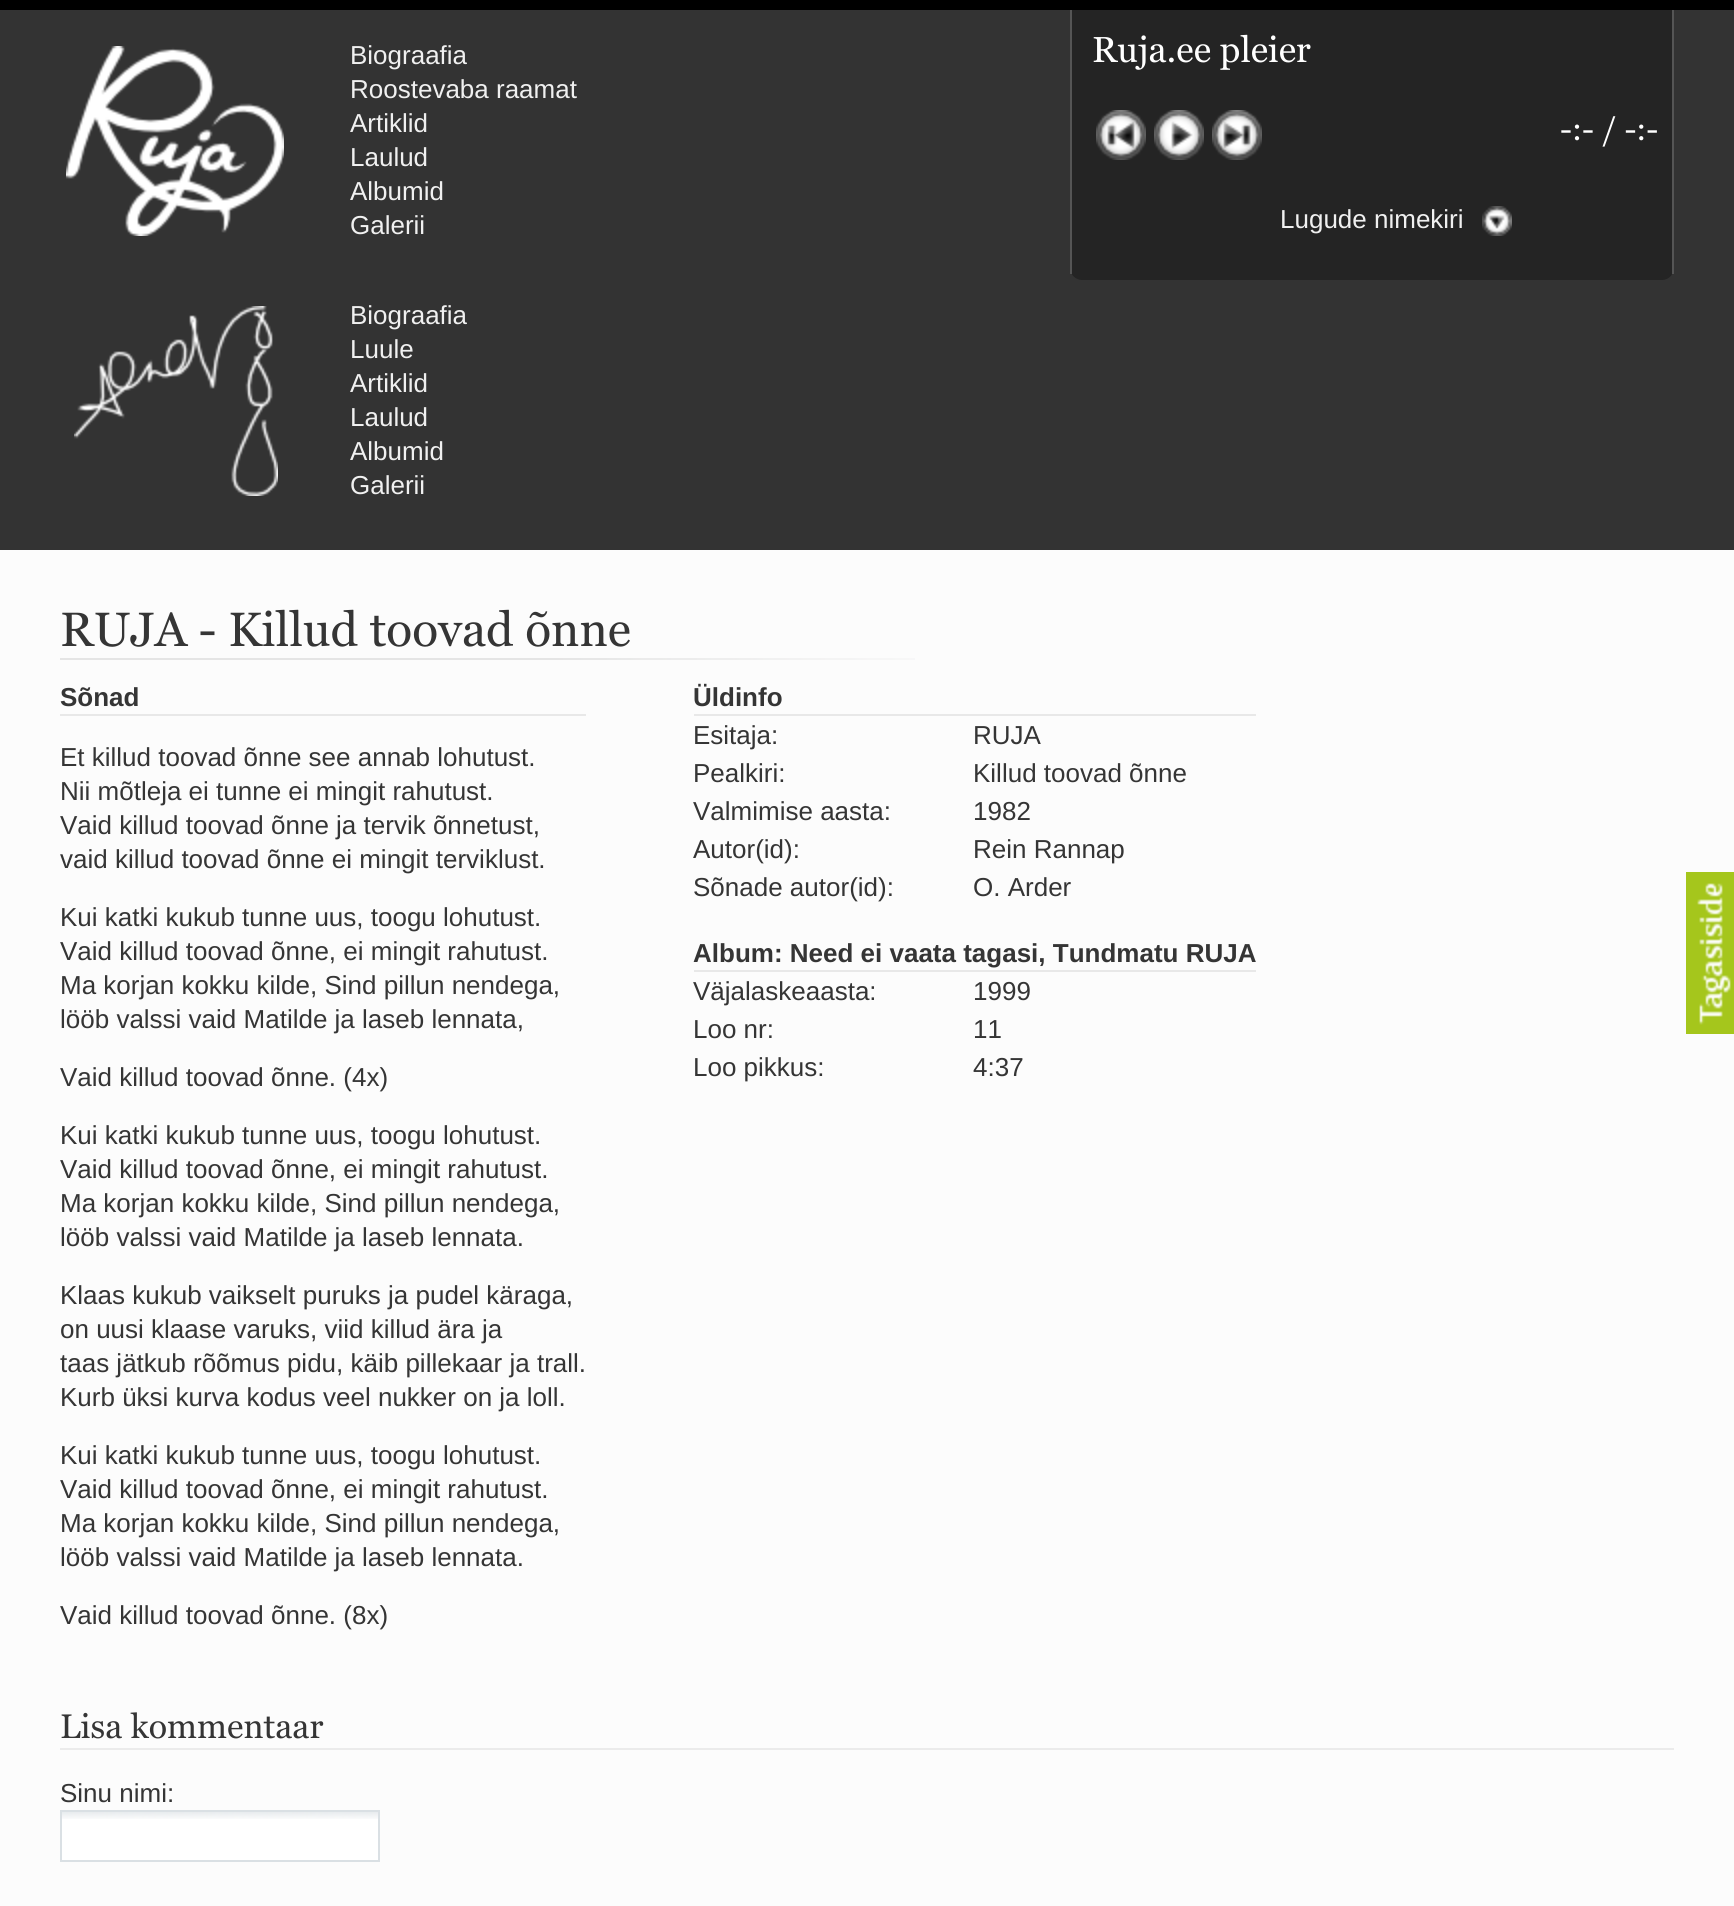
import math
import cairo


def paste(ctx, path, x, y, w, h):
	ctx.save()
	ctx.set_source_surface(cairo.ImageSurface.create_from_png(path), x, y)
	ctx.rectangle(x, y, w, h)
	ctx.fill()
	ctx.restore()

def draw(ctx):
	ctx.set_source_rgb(0.988, 0.988, 0.988)
	ctx.paint()
	ctx.set_source_rgb(0.2, 0.2, 0.2)
	ctx.rectangle(0, 10, 1734, 540)
	ctx.fill()
	ctx.set_source_rgb(0, 0, 0)
	ctx.rectangle(0, 0, 1734, 10)
	ctx.fill()
	paste(ctx, 'media/1.png', 66, 46, 218, 190)
	ctx.select_font_face('Liberation Sans')
	ctx.set_font_size(26)
	ctx.set_source_rgb(0.941, 0.941, 0.941)
	for x, y, s in [
		(350, 64, 'Biograafia'),
		(350, 98, 'Roostevaba raamat'),
		(350, 132, 'Artiklid'),
		(350, 166, 'Laulud'),
		(350, 200, 'Albumid'),
		(350, 234, 'Galerii'),
	]:
		ctx.move_to(x, y)
		ctx.show_text(s)
	ctx.set_source_rgb(0.141, 0.141, 0.141)
	ctx.new_path()
	ctx.move_to(1070, 10)
	ctx.line_to(1674, 10)
	ctx.line_to(1674, 268)
	ctx.curve_to(1674, 274.5, 1668.5, 280, 1662, 280)
	ctx.line_to(1082, 280)
	ctx.curve_to(1075.5, 280, 1070, 274.5, 1070, 268)
	ctx.close_path()
	ctx.fill()
	ctx.set_source_rgb(0.333, 0.333, 0.333)
	ctx.rectangle(1672, 10, 2, 264)
	ctx.fill()
	ctx.rectangle(1070, 10, 2, 264)
	ctx.fill()
	ctx.select_font_face('Georgia')
	ctx.set_font_size(36)
	ctx.set_source_rgb(1, 1, 1)
	ctx.move_to(1092, 62)
	ctx.show_text('Ruja.ee pleier')
	paste(ctx, 'media/2.png', 1096, 110, 50, 50)
	paste(ctx, 'media/3.png', 1154, 110, 50, 50)
	paste(ctx, 'media/4.png', 1212, 110, 50, 50)
	ctx.set_font_size(32)
	ctx.move_to(1560, 140)
	ctx.show_text('-:- / -:-')
	paste(ctx, 'media/5.png', 1482, 206, 30, 30)
	ctx.select_font_face('Liberation Sans')
	ctx.set_font_size(26)
	ctx.set_source_rgb(0.941, 0.941, 0.941)
	ctx.move_to(1280, 228)
	ctx.show_text('Lugude nimekiri')
	paste(ctx, 'media/6.png', 74, 306, 204, 190)
	for x, y, s in [
		(350, 324, 'Biograafia'),
		(350, 358, 'Luule'),
		(350, 392, 'Artiklid'),
		(350, 426, 'Laulud'),
		(350, 460, 'Albumid'),
		(350, 494, 'Galerii'),
	]:
		ctx.move_to(x, y)
		ctx.show_text(s)
	paste(ctx, 'media/7.png', 60, 658, 855, 2)
	ctx.select_font_face('Georgia')
	ctx.set_font_size(48)
	ctx.set_source_rgb(0.208, 0.208, 0.208)
	ctx.move_to(60, 646)
	ctx.show_text('RUJA - Killud toovad õnne')
	ctx.set_source_rgb(0.91, 0.91, 0.91)
	ctx.rectangle(60, 714, 526, 2)
	ctx.fill()
	ctx.select_font_face('Liberation Sans', cairo.FONT_SLANT_NORMAL, cairo.FONT_WEIGHT_BOLD)
	ctx.set_font_size(26)
	ctx.set_source_rgb(0.208, 0.208, 0.208)
	ctx.move_to(60, 706)
	ctx.show_text('Sõnad')
	ctx.select_font_face('Liberation Sans')
	for x, y, s in [
		(60, 766, 'Et killud toovad õnne see annab lohutust.'),
		(60, 800, 'Nii mõtleja ei tunne ei mingit rahutust.'),
		(60, 834, 'Vaid killud toovad õnne ja tervik õnnetust,'),
		(60, 868, 'vaid killud toovad õnne ei mingit terviklust.'),
		(60, 926, 'Kui katki kukub tunne uus, toogu lohutust.'),
		(60, 960, 'Vaid killud toovad õnne, ei mingit rahutust.'),
		(60, 994, 'Ma korjan kokku kilde, Sind pillun nendega,'),
		(60, 1028, 'lööb valssi vaid Matilde ja laseb lennata,'),
		(60, 1086, 'Vaid killud toovad õnne. (4x)'),
		(60, 1144, 'Kui katki kukub tunne uus, toogu lohutust.'),
		(60, 1178, 'Vaid killud toovad õnne, ei mingit rahutust.'),
		(60, 1212, 'Ma korjan kokku kilde, Sind pillun nendega,'),
		(60, 1246, 'lööb valssi vaid Matilde ja laseb lennata.'),
		(60, 1304, 'Klaas kukub vaikselt puruks ja pudel käraga,'),
		(60, 1338, 'on uusi klaase varuks, viid killud ära ja'),
		(60, 1372, 'taas jätkub rõõmus pidu, käib pillekaar ja trall.'),
		(60, 1406, 'Kurb üksi kurva kodus veel nukker on ja loll.'),
		(60, 1464, 'Kui katki kukub tunne uus, toogu lohutust.'),
		(60, 1498, 'Vaid killud toovad õnne, ei mingit rahutust.'),
		(60, 1532, 'Ma korjan kokku kilde, Sind pillun nendega,'),
		(60, 1566, 'lööb valssi vaid Matilde ja laseb lennata.'),
		(60, 1624, 'Vaid killud toovad õnne. (8x)'),
	]:
		ctx.move_to(x, y)
		ctx.show_text(s)
	ctx.set_source_rgb(0.91, 0.91, 0.91)
	ctx.rectangle(694, 714, 562, 2)
	ctx.fill()
	ctx.select_font_face('Liberation Sans', cairo.FONT_SLANT_NORMAL, cairo.FONT_WEIGHT_BOLD)
	ctx.set_source_rgb(0.208, 0.208, 0.208)
	ctx.move_to(693, 706)
	ctx.show_text('Üldinfo')
	ctx.select_font_face('Liberation Sans')
	for x, y, s in [
		(693, 744, 'Esitaja:'),
		(973, 744, 'RUJA'),
		(693, 782, 'Pealkiri:'),
		(973, 782, 'Killud toovad õnne'),
		(693, 820, 'Valmimise aasta:'),
		(973, 820, '1982'),
		(693, 858, 'Autor(id):'),
		(973, 858, 'Rein Rannap'),
		(693, 896, 'Sõnade autor(id):'),
		(973, 896, 'O. Arder'),
	]:
		ctx.move_to(x, y)
		ctx.show_text(s)
	ctx.set_source_rgb(0.91, 0.91, 0.91)
	ctx.rectangle(694, 970, 562, 2)
	ctx.fill()
	ctx.select_font_face('Liberation Sans', cairo.FONT_SLANT_NORMAL, cairo.FONT_WEIGHT_BOLD)
	ctx.set_source_rgb(0.208, 0.208, 0.208)
	ctx.move_to(693, 962)
	ctx.show_text('Album: Need ei vaata tagasi, Tundmatu RUJA')
	ctx.select_font_face('Liberation Sans')
	for x, y, s in [
		(693, 1000, 'Väjalaskeaasta:'),
		(973, 1000, '1999'),
		(693, 1038, 'Loo nr:'),
		(973, 1038, '11'),
		(693, 1076, 'Loo pikkus:'),
		(973, 1076, '4:37'),
	]:
		ctx.move_to(x, y)
		ctx.show_text(s)
	ctx.set_source_rgb(0.918, 0.918, 0.918)
	ctx.rectangle(60, 1748, 1614, 2)
	ctx.fill()
	ctx.select_font_face('Georgia')
	ctx.set_font_size(34)
	ctx.set_source_rgb(0.208, 0.208, 0.208)
	ctx.move_to(60, 1738)
	ctx.show_text('Lisa kommentaar')
	ctx.select_font_face('Liberation Sans')
	ctx.set_font_size(26)
	ctx.move_to(60, 1802)
	ctx.show_text('Sinu nimi:')
	ctx.set_source_rgb(1, 1, 1)
	ctx.rectangle(62, 1819, 316, 41)
	ctx.fill()
	paste(ctx, 'media/8.png', 62, 1812, 316, 7)
	ctx.rectangle(61, 1811, 318, 50)
	ctx.set_source_rgb(0.855, 0.878, 0.894)
	ctx.stroke()
	paste(ctx, 'media/9.png', 1686, 872, 48, 162)


surface = cairo.ImageSurface(cairo.FORMAT_RGB24, 1734, 1906)
ctx = cairo.Context(surface)
options = cairo.FontOptions()
options.set_hint_metrics(cairo.HINT_METRICS_OFF)
options.set_hint_style(cairo.HINT_STYLE_NONE)
ctx.set_font_options(options)
ctx.set_miter_limit(4)
draw(ctx)
surface.write_to_png('image.png')
